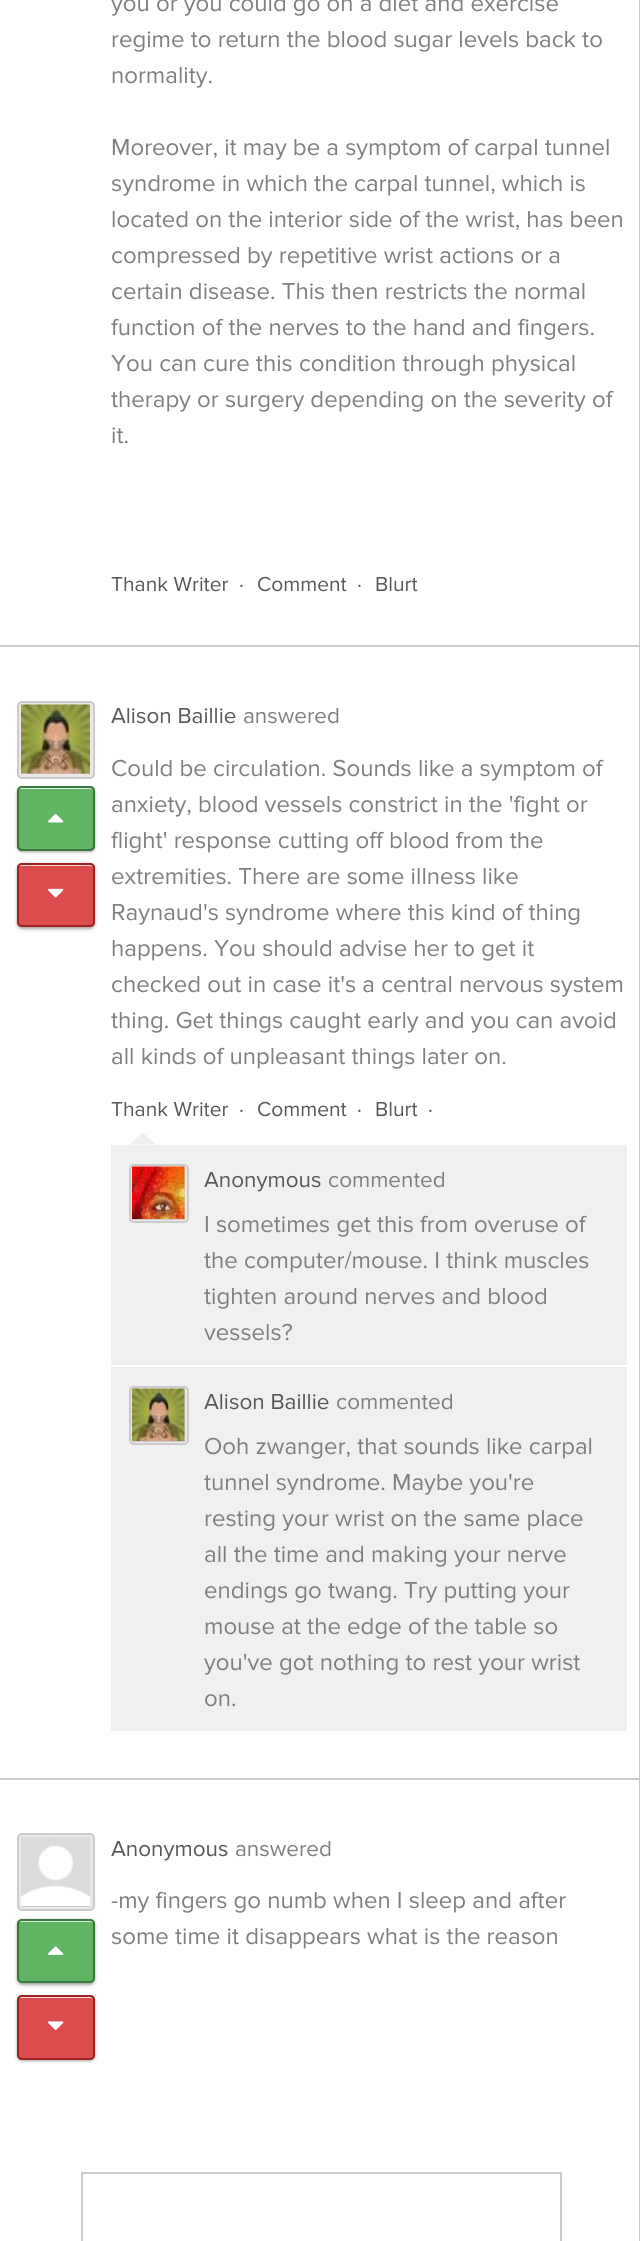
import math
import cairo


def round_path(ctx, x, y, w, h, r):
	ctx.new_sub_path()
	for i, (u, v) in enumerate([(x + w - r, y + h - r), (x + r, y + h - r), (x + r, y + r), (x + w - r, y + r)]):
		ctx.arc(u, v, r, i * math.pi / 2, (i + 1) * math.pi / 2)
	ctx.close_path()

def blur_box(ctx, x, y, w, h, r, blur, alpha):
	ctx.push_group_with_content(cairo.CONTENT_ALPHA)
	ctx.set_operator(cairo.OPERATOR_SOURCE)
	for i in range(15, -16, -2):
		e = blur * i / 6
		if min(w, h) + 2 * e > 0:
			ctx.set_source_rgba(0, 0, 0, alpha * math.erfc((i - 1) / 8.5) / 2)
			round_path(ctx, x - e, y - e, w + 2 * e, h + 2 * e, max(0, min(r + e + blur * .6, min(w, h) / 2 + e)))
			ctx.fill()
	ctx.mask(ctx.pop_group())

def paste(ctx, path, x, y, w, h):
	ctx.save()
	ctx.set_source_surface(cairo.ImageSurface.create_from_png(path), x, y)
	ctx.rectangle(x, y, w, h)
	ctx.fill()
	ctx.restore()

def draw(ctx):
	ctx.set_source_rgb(1, 1, 1)
	ctx.paint()
	ctx.set_source_rgb(0.796, 0.796, 0.796)
	ctx.rectangle(639, 0, 1, 2241)
	ctx.fill()
	ctx.rectangle(0, 645, 639, 2)
	ctx.fill()
	ctx.select_font_face('Proxima Nova')
	ctx.set_font_size(24)
	ctx.set_source_rgb(0.498, 0.498, 0.498)
	for x, y, s in [
		(111, 11, 'you or you could go on a diet and exercise'),
		(111, 47, 'regime to return the blood sugar levels back to'),
		(111, 83, 'normality.'),
		(111, 155, 'Moreover, it may be a symptom of carpal tunnel'),
		(111, 191, 'syndrome in which the carpal tunnel, which is'),
		(111, 227, 'located on the interior side of the wrist, has been'),
		(111, 263, 'compressed by repetitive wrist actions or a'),
		(111, 299, 'certain disease. This then restricts the normal'),
		(111, 335, 'function of the nerves to the hand and fingers.'),
		(111, 371, 'You can cure this condition through physical'),
		(111, 407, 'therapy or surgery depending on the severity of'),
		(111, 443, 'it.'),
	]:
		ctx.move_to(x, y)
		ctx.show_text(s)
	ctx.set_font_size(21)
	ctx.set_source_rgb(0.345, 0.345, 0.345)
	for x, y, s in [
		(111, 591, 'Thank Writer'),
		(239, 591, '·'),
		(257, 591, 'Comment'),
		(357, 591, '·'),
		(375, 591, 'Blurt'),
	]:
		ctx.move_to(x, y)
		ctx.show_text(s)
	ctx.set_source_rgb(0.796, 0.796, 0.796)
	ctx.rectangle(0, 1778, 639, 2)
	ctx.fill()
	ctx.set_source_rgb(0.925, 0.902, 0.906)
	round_path(ctx, 18, 702, 76, 76, 4)
	ctx.fill_preserve()
	ctx.set_source_rgb(0.796, 0.796, 0.796)
	ctx.stroke()
	ctx.rectangle(21, 773, 69, 1)
	ctx.fill()
	paste(ctx, 'media/1.png', 21, 704, 69, 70)
	ctx.set_source_rgb(0, 0, 0)
	blur_box(ctx, 17, 788, 78, 64, 5, 1.5, 0.35)
	ctx.set_source_rgb(0.38, 0.706, 0.388)
	round_path(ctx, 17, 786, 78, 65, 5)
	ctx.fill()
	ctx.set_source_rgb(0.875, 0.941, 0.878)
	ctx.new_path()
	ctx.move_to(21, 789)
	ctx.line_to(90, 789)
	ctx.curve_to(92, 789, 93, 790, 93, 792)
	ctx.curve_to(93, 785, 83, 788, 78, 788)
	ctx.line_to(32, 788)
	ctx.curve_to(28, 788, 18, 785, 18, 792)
	ctx.curve_to(18, 790, 19, 789, 21, 789)
	ctx.close_path()
	ctx.fill()
	round_path(ctx, 18, 787, 76, 63, 4)
	ctx.set_source_rgb(0.22, 0.467, 0.227)
	ctx.stroke()
	paste(ctx, 'media/2.png', 48, 813, 16, 10)
	ctx.set_source_rgb(0, 0, 0)
	blur_box(ctx, 17, 864, 78, 65, 5, 1.5, 0.35)
	ctx.set_source_rgb(0.859, 0.302, 0.302)
	round_path(ctx, 17, 863, 78, 64, 5)
	ctx.fill()
	ctx.set_source_rgb(0.973, 0.859, 0.859)
	ctx.new_path()
	ctx.move_to(21, 866)
	ctx.line_to(90, 866)
	ctx.curve_to(92, 866, 93, 867, 93, 868)
	ctx.curve_to(93, 861, 83, 864, 78, 864)
	ctx.line_to(32, 864)
	ctx.curve_to(28, 864, 18, 861, 18, 868)
	ctx.curve_to(18, 867, 19, 866, 21, 866)
	ctx.close_path()
	ctx.fill()
	round_path(ctx, 18, 864, 76, 62, 4)
	ctx.set_source_rgb(0.631, 0.129, 0.129)
	ctx.stroke()
	paste(ctx, 'media/3.png', 48, 888, 16, 10)
	ctx.set_font_size(22.5)
	ctx.set_source_rgb(0.345, 0.345, 0.345)
	ctx.move_to(111, 723)
	ctx.show_text('Alison Baillie')
	ctx.set_source_rgb(0.498, 0.498, 0.498)
	ctx.move_to(243, 723)
	ctx.show_text('answered')
	ctx.set_font_size(24)
	for x, y, s in [
		(111, 776, 'Could be circulation. Sounds like a symptom of'),
		(111, 812, 'anxiety, blood vessels constrict in the \'fight or'),
		(111, 848, 'flight\' response cutting off blood from the'),
		(111, 884, 'extremities. There are some illness like'),
		(111, 920, 'Raynaud\'s syndrome where this kind of thing'),
		(111, 956, 'happens. You should advise her to get it'),
		(111, 992, 'checked out in case it\'s a central nervous system'),
		(111, 1028, 'thing. Get things caught early and you can avoid'),
		(111, 1064, 'all kinds of unpleasant things later on.'),
	]:
		ctx.move_to(x, y)
		ctx.show_text(s)
	ctx.set_font_size(21)
	ctx.set_source_rgb(0.345, 0.345, 0.345)
	for x, y, s in [
		(111, 1116, 'Thank Writer'),
		(239, 1116, '·'),
		(257, 1116, 'Comment'),
		(357, 1116, '·'),
		(375, 1116, 'Blurt'),
		(428, 1116, '·'),
	]:
		ctx.move_to(x, y)
		ctx.show_text(s)
	ctx.set_source_rgb(0.941, 0.941, 0.941)
	ctx.rectangle(111, 1145, 516, 586)
	ctx.fill()
	ctx.new_path()
	ctx.move_to(156, 1144.5)
	ctx.line_to(129, 1144.5)
	ctx.line_to(142.5, 1132.5)
	ctx.close_path()
	ctx.fill()
	ctx.set_source_rgb(1, 1, 1)
	ctx.rectangle(111, 1365, 516, 2)
	ctx.fill()
	ctx.set_source_rgb(0.925, 0.902, 0.906)
	round_path(ctx, 130, 1165, 58, 57, 4)
	ctx.fill_preserve()
	ctx.set_source_rgb(0.796, 0.796, 0.796)
	ctx.stroke()
	ctx.rectangle(132, 1167, 53, 53)
	ctx.fill()
	paste(ctx, 'media/4.png', 132, 1166, 53, 53)
	ctx.set_font_size(22.5)
	ctx.set_source_rgb(0.345, 0.345, 0.345)
	ctx.move_to(204, 1187)
	ctx.show_text('Anonymous')
	ctx.set_source_rgb(0.498, 0.498, 0.498)
	ctx.move_to(328, 1187)
	ctx.show_text('commented')
	ctx.set_font_size(24)
	for x, y, s in [
		(204, 1232, 'I sometimes get this from overuse of'),
		(204, 1268, 'the computer/mouse. I think muscles'),
		(204, 1304, 'tighten around nerves and blood'),
		(204, 1340, 'vessels?'),
	]:
		ctx.move_to(x, y)
		ctx.show_text(s)
	ctx.set_source_rgb(0.925, 0.902, 0.906)
	round_path(ctx, 130, 1387, 58, 57, 4)
	ctx.fill_preserve()
	ctx.set_source_rgb(0.796, 0.796, 0.796)
	ctx.stroke()
	ctx.rectangle(132, 1389, 53, 53)
	ctx.fill()
	paste(ctx, 'media/5.png', 132, 1388, 53, 53)
	ctx.set_font_size(22.5)
	ctx.set_source_rgb(0.345, 0.345, 0.345)
	ctx.move_to(204, 1409)
	ctx.show_text('Alison Baillie')
	ctx.set_source_rgb(0.498, 0.498, 0.498)
	ctx.move_to(336, 1409)
	ctx.show_text('commented')
	ctx.set_font_size(24)
	for x, y, s in [
		(204, 1454, 'Ooh zwanger, that sounds like carpal'),
		(204, 1490, 'tunnel syndrome. Maybe you\'re'),
		(204, 1526, 'resting your wrist on the same place'),
		(204, 1562, 'all the time and making your nerve'),
		(204, 1598, 'endings go twang. Try putting your'),
		(204, 1634, 'mouse at the edge of the table so'),
		(204, 1670, 'you\'ve got nothing to rest your wrist'),
		(204, 1706, 'on.'),
	]:
		ctx.move_to(x, y)
		ctx.show_text(s)
	ctx.set_source_rgb(0.925, 0.902, 0.906)
	round_path(ctx, 18, 1834, 76, 76, 4)
	ctx.fill_preserve()
	ctx.set_source_rgb(0.796, 0.796, 0.796)
	ctx.stroke()
	ctx.rectangle(21, 1906, 69, 1)
	ctx.fill()
	paste(ctx, 'media/6.png', 21, 1837, 69, 69)
	ctx.set_source_rgb(0, 0, 0)
	blur_box(ctx, 17, 1920, 78, 65, 5, 1.5, 0.35)
	ctx.set_source_rgb(0.38, 0.706, 0.388)
	round_path(ctx, 17, 1919, 78, 64, 5)
	ctx.fill()
	ctx.set_source_rgb(0.875, 0.941, 0.878)
	ctx.new_path()
	ctx.move_to(21, 1922)
	ctx.line_to(90, 1922)
	ctx.curve_to(92, 1922, 93, 1923, 93, 1924)
	ctx.curve_to(93, 1917, 83, 1920, 78, 1920)
	ctx.line_to(32, 1920)
	ctx.curve_to(28, 1920, 18, 1917, 18, 1924)
	ctx.curve_to(18, 1923, 19, 1922, 21, 1922)
	ctx.close_path()
	ctx.fill()
	round_path(ctx, 18, 1920, 76, 62, 4)
	ctx.set_source_rgb(0.22, 0.467, 0.227)
	ctx.stroke()
	paste(ctx, 'media/7.png', 48, 1946, 16, 9)
	ctx.set_source_rgb(0, 0, 0)
	blur_box(ctx, 17, 1997, 78, 64, 5, 1.5, 0.35)
	ctx.set_source_rgb(0.859, 0.302, 0.302)
	round_path(ctx, 17, 1995, 78, 65, 5)
	ctx.fill()
	ctx.set_source_rgb(0.973, 0.859, 0.859)
	ctx.new_path()
	ctx.move_to(21, 1998)
	ctx.line_to(90, 1998)
	ctx.curve_to(92, 1998, 93, 1999, 93, 2001)
	ctx.curve_to(93, 1994, 83, 1997, 78, 1997)
	ctx.line_to(32, 1997)
	ctx.curve_to(28, 1997, 18, 1994, 18, 2001)
	ctx.curve_to(18, 1999, 19, 1998, 21, 1998)
	ctx.close_path()
	ctx.fill()
	round_path(ctx, 18, 1996, 76, 63, 4)
	ctx.set_source_rgb(0.631, 0.129, 0.129)
	ctx.stroke()
	paste(ctx, 'media/8.png', 48, 2021, 16, 9)
	ctx.set_font_size(22.5)
	ctx.set_source_rgb(0.345, 0.345, 0.345)
	ctx.move_to(111, 1856)
	ctx.show_text('Anonymous')
	ctx.set_source_rgb(0.498, 0.498, 0.498)
	ctx.move_to(235, 1856)
	ctx.show_text('answered')
	ctx.set_font_size(24)
	ctx.move_to(111, 1908)
	ctx.show_text('-my fingers go numb when I sleep and after')
	ctx.move_to(111, 1944)
	ctx.show_text('some time it disappears what is the reason')
	ctx.set_source_rgb(0.796, 0.796, 0.796)
	ctx.rectangle(81, 2172, 480, 2)
	ctx.rectangle(560, 2172, 2, 69)
	ctx.rectangle(81, 2172, 2, 69)
	ctx.fill()


surface = cairo.ImageSurface(cairo.FORMAT_RGB24, 640, 2241)
ctx = cairo.Context(surface)
options = cairo.FontOptions()
options.set_hint_metrics(cairo.HINT_METRICS_OFF)
options.set_hint_style(cairo.HINT_STYLE_NONE)
ctx.set_font_options(options)
ctx.set_miter_limit(4)
draw(ctx)
surface.write_to_png('image.png')
